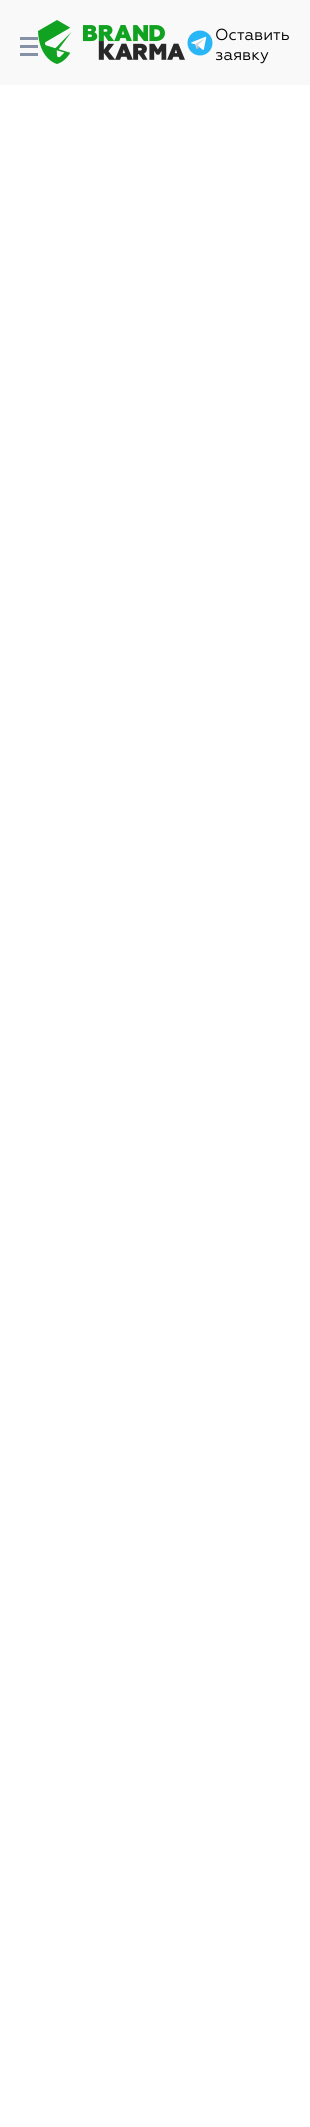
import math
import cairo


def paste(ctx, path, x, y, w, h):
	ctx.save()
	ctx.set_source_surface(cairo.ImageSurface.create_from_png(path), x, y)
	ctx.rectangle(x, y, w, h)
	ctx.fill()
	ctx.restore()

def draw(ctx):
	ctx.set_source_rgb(1, 1, 1)
	ctx.paint()
	ctx.set_source_rgb(0.973, 0.973, 0.973)
	ctx.rectangle(0, 0, 310, 85)
	ctx.fill()
	ctx.save()
	ctx.rectangle(20, 30, 18, 32)
	ctx.clip()
	ctx.new_path()
	ctx.move_to(19, 38.5)
	ctx.line_to(40, 38.5)
	ctx.move_to(19, 46.5)
	ctx.line_to(40, 46.5)
	ctx.move_to(19, 54.5)
	ctx.line_to(40, 54.5)
	ctx.set_source_rgb(0.522, 0.573, 0.651)
	ctx.set_line_width(3)
	ctx.set_line_cap(cairo.LINE_CAP_ROUND)
	ctx.stroke()
	ctx.restore()
	paste(ctx, 'media/1.png', 38, 20, 147, 44)
	paste(ctx, 'media/2.png', 187, 30, 26, 26)
	ctx.select_font_face('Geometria')
	ctx.set_font_size(16)
	ctx.set_source_rgb(0, 0, 0)
	ctx.move_to(215, 40)
	ctx.show_text('Оставить')
	ctx.move_to(215, 60)
	ctx.show_text('заявку')


surface = cairo.ImageSurface(cairo.FORMAT_RGB24, 310, 2127)
ctx = cairo.Context(surface)
options = cairo.FontOptions()
options.set_hint_metrics(cairo.HINT_METRICS_OFF)
options.set_hint_style(cairo.HINT_STYLE_NONE)
ctx.set_font_options(options)
ctx.set_miter_limit(4)
draw(ctx)
surface.write_to_png('image.png')
